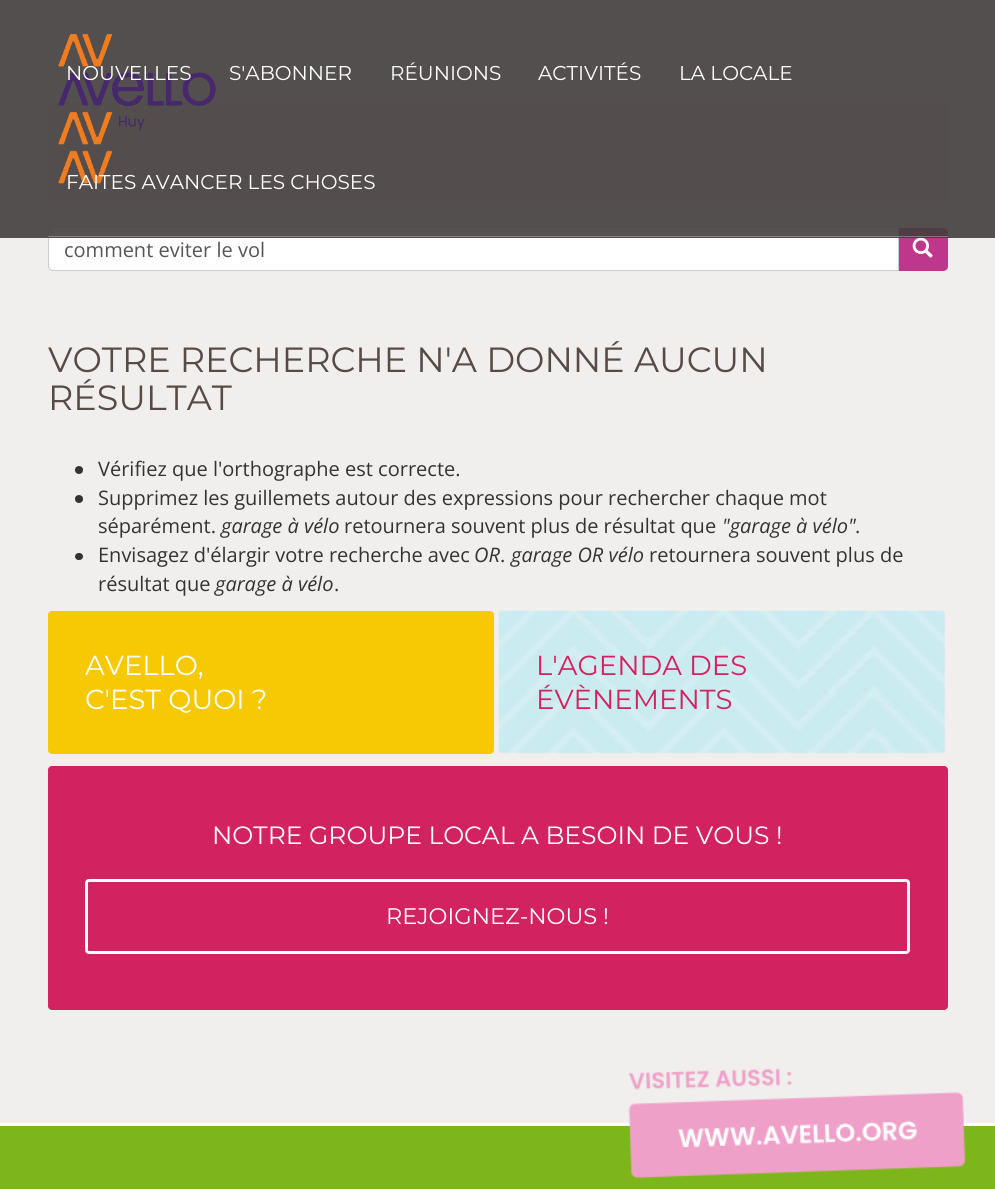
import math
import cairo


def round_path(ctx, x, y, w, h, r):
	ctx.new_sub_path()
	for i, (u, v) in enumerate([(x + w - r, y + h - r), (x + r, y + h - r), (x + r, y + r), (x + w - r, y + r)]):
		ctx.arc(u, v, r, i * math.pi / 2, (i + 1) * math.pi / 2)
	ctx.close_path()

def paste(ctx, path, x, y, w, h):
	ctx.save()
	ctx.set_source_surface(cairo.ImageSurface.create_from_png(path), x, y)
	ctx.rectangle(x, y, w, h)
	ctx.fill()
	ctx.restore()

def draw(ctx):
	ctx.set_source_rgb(0.941, 0.937, 0.929)
	ctx.paint()
	ctx.set_source_rgb(0.949, 0.871, 0.871)
	round_path(ctx, 48.5, 103.5, 899, 95, 4.5)
	ctx.fill_preserve()
	ctx.set_source_rgb(0.922, 0.8, 0.82)
	ctx.set_line_width(1)
	ctx.stroke()
	ctx.set_source_rgb(0.749, 0.216, 0.549)
	ctx.new_path()
	ctx.move_to(898, 228)
	ctx.line_to(943, 228)
	ctx.curve_to(946, 228, 948, 230, 948, 233)
	ctx.line_to(948, 266)
	ctx.curve_to(948, 269, 946, 271, 943, 271)
	ctx.line_to(898, 271)
	ctx.close_path()
	ctx.fill()
	ctx.set_source_rgb(1, 1, 1)
	ctx.new_path()
	ctx.move_to(53, 226)
	ctx.line_to(899, 226)
	ctx.line_to(899, 271)
	ctx.line_to(53, 271)
	ctx.curve_to(50, 271, 48, 269, 48, 266)
	ctx.line_to(48, 231)
	ctx.curve_to(48, 228, 50, 226, 53, 226)
	ctx.close_path()
	ctx.fill()
	ctx.set_source_rgb(0.925, 0.925, 0.925)
	ctx.new_path()
	ctx.move_to(52, 229)
	ctx.line_to(898, 229)
	ctx.line_to(898, 228)
	ctx.line_to(53, 228)
	ctx.curve_to(52, 228, 50, 229, 50, 230)
	ctx.close_path()
	ctx.fill()
	ctx.new_path()
	ctx.move_to(53, 226.5)
	ctx.line_to(898.5, 226.5)
	ctx.line_to(898.5, 270.5)
	ctx.line_to(53, 270.5)
	ctx.curve_to(50.5, 270.5, 48.5, 268.5, 48.5, 266)
	ctx.line_to(48.5, 231)
	ctx.curve_to(48.5, 228.5, 50.5, 226.5, 53, 226.5)
	ctx.close_path()
	ctx.set_source_rgb(0.8, 0.8, 0.8)
	ctx.stroke()
	paste(ctx, 'media/2.png', 912, 237, 21, 21)
	ctx.set_source_rgba(0.259, 0.247, 0.243, 0.9)
	ctx.rectangle(0, 0, 995, 238)
	ctx.fill()
	paste(ctx, 'media/1.png', 58, 34, 158, 150)
	ctx.set_source_rgba(1, 1, 1, 0.3)
	ctx.rectangle(48, 236, 900, 1)
	ctx.fill()
	ctx.select_font_face('Montserrat')
	ctx.set_font_size(20)
	ctx.set_source_rgb(1, 1, 1)
	for x, y, s in [
		(66, 80, 'NOUVELLES'),
		(229, 80, 'S\'ABONNER'),
		(390, 80, 'RÉUNIONS'),
		(538, 80, 'ACTIVITÉS'),
		(679, 80, 'LA LOCALE'),
		(66, 189, 'FAITES AVANCER LES CHOSES'),
	]:
		ctx.move_to(x, y)
		ctx.show_text(s)
	ctx.select_font_face('Open Sans')
	ctx.set_source_rgb(0.333, 0.333, 0.333)
	ctx.move_to(64, 257)
	ctx.show_text('comment eviter le vol')
	ctx.select_font_face('Montserrat')
	ctx.set_font_size(35)
	ctx.set_source_rgb(0.345, 0.29, 0.267)
	ctx.move_to(48, 372)
	ctx.show_text('VOTRE RECHERCHE N\'A DONNÉ AUCUN')
	ctx.move_to(48, 410)
	ctx.show_text('RÉSULTAT')
	ctx.set_source_rgb(0.2, 0.2, 0.2)
	ctx.new_path()
	ctx.arc(79, 470, 4, 0, 2 * math.pi)
	ctx.fill()
	ctx.select_font_face('Open Sans')
	ctx.set_font_size(20)
	ctx.move_to(98, 476)
	ctx.show_text('Vérifiez que l\'orthographe est correcte.')
	ctx.new_path()
	ctx.arc(79, 499, 4, 0, 2 * math.pi)
	ctx.fill()
	ctx.move_to(98, 505)
	ctx.show_text('Supprimez les guillemets autour des expressions pour rechercher chaque mot')
	ctx.move_to(98, 533)
	ctx.show_text('séparément.')
	ctx.select_font_face('Open Sans', cairo.FONT_SLANT_ITALIC)
	ctx.move_to(221, 533)
	ctx.show_text('garage à vélo')
	ctx.select_font_face('Open Sans')
	ctx.move_to(344, 533)
	ctx.show_text('retournera souvent plus de résultat que')
	ctx.select_font_face('Open Sans', cairo.FONT_SLANT_ITALIC)
	ctx.move_to(722, 533)
	ctx.show_text('"garage à vélo"')
	ctx.select_font_face('Open Sans')
	ctx.move_to(855, 533)
	ctx.show_text('.')
	round_path(ctx, 75, 553, 8, 7, 3.5)
	ctx.fill()
	ctx.move_to(98, 562)
	ctx.show_text('Envisagez d\'élargir votre recherche avec')
	ctx.select_font_face('Open Sans', cairo.FONT_SLANT_ITALIC)
	ctx.move_to(474, 562)
	ctx.show_text('OR')
	ctx.move_to(511, 562)
	ctx.show_text('garage OR vélo')
	ctx.select_font_face('Open Sans')
	for x, y, s in [
		(649, 562, 'retournera souvent plus de'),
		(500, 562, '.'),
		(98, 591, 'résultat que'),
	]:
		ctx.move_to(x, y)
		ctx.show_text(s)
	ctx.select_font_face('Open Sans', cairo.FONT_SLANT_ITALIC)
	ctx.move_to(215, 591)
	ctx.show_text('garage à vélo')
	ctx.select_font_face('Open Sans')
	ctx.move_to(334, 591)
	ctx.show_text('.')
	ctx.set_source_rgb(0.961, 0.788, 0.016)
	round_path(ctx, 48, 611, 446, 143, 4)
	ctx.fill()
	ctx.select_font_face('Montserrat')
	ctx.set_font_size(27.5)
	ctx.set_source_rgb(1, 1, 1)
	ctx.move_to(85, 675)
	ctx.show_text('AVELLO,')
	ctx.move_to(85, 709)
	ctx.show_text('C\'EST QUOI ?')
	paste(ctx, 'media/3.png', 498, 610, 447, 144)
	ctx.set_source_rgb(0.824, 0.133, 0.376)
	ctx.move_to(536, 675)
	ctx.show_text('L\'AGENDA DES')
	ctx.move_to(536, 709)
	ctx.show_text('ÉVÈNEMENTS')
	round_path(ctx, 48, 766, 900, 244, 4)
	ctx.fill()
	ctx.set_font_size(25)
	ctx.set_source_rgb(1, 1, 1)
	ctx.move_to(212, 844)
	ctx.show_text('NOTRE GROUPE LOCAL A BESOIN DE VOUS !')
	round_path(ctx, 86.5, 880.5, 822, 72, 2.5)
	ctx.set_line_width(3)
	ctx.stroke()
	ctx.set_font_size(22.5)
	ctx.move_to(386, 924)
	ctx.show_text('REJOIGNEZ-NOUS !')
	ctx.set_source_rgb(0.49, 0.714, 0.102)
	ctx.rectangle(0, 1126, 995, 63)
	ctx.fill()
	ctx.set_source_rgb(1, 1, 1)
	ctx.rectangle(0, 1123, 995, 3)
	ctx.fill()
	paste(ctx, 'media/4.png', 628, 1068, 338, 111)


surface = cairo.ImageSurface(cairo.FORMAT_RGB24, 995, 1189)
ctx = cairo.Context(surface)
options = cairo.FontOptions()
options.set_hint_metrics(cairo.HINT_METRICS_OFF)
options.set_hint_style(cairo.HINT_STYLE_NONE)
ctx.set_font_options(options)
ctx.set_miter_limit(4)
draw(ctx)
surface.write_to_png('image.png')
